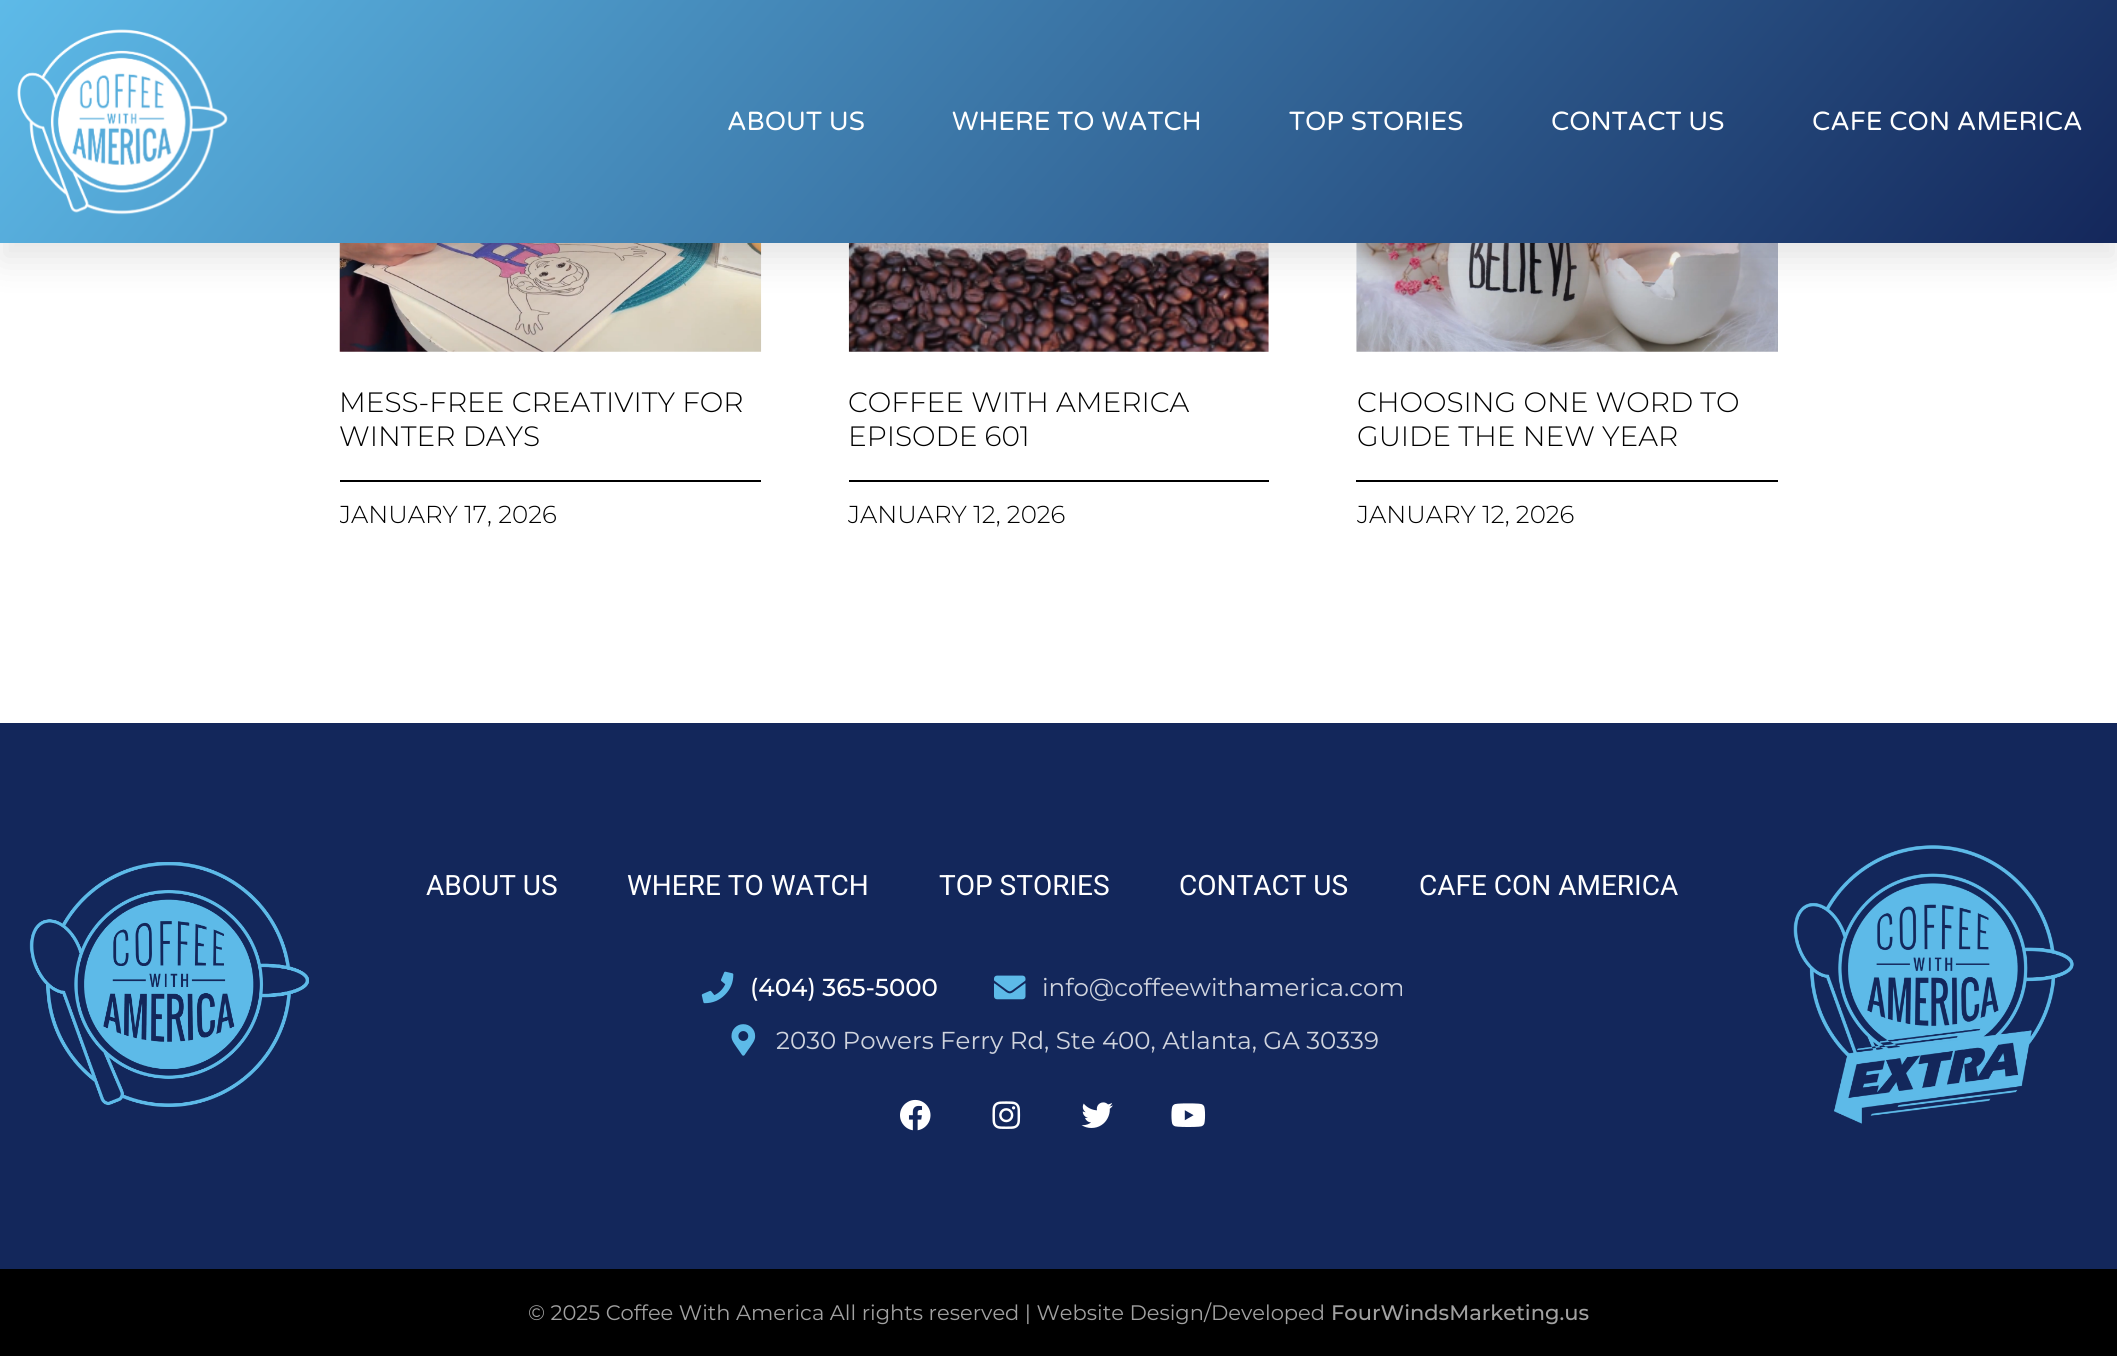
import math
import cairo


def round_path(ctx, x, y, w, h, r):
	ctx.new_sub_path()
	for i, (u, v) in enumerate([(x + w - r, y + h - r), (x + r, y + h - r), (x + r, y + r), (x + w - r, y + r)]):
		ctx.arc(u, v, r, i * math.pi / 2, (i + 1) * math.pi / 2)
	ctx.close_path()

def blur_box(ctx, x, y, w, h, r, blur, alpha):
	ctx.push_group_with_content(cairo.CONTENT_ALPHA)
	ctx.set_operator(cairo.OPERATOR_SOURCE)
	for i in range(15, -16, -2):
		e = blur * i / 6
		if min(w, h) + 2 * e > 0:
			ctx.set_source_rgba(0, 0, 0, alpha * math.erfc((i - 1) / 8.5) / 2)
			round_path(ctx, x - e, y - e, w + 2 * e, h + 2 * e, max(0, min(r + e + blur * .6, min(w, h) / 2 + e)))
			ctx.fill()
	ctx.mask(ctx.pop_group())

def paste(ctx, path, x, y, w, h):
	ctx.save()
	ctx.set_source_surface(cairo.ImageSurface.create_from_png(path), x, y)
	ctx.rectangle(x, y, w, h)
	ctx.fill()
	ctx.restore()

def draw(ctx):
	ctx.set_source_rgb(1, 1, 1)
	ctx.paint()
	paste(ctx, 'media/2.png', 339, 243, 423, 109)
	paste(ctx, 'media/3.png', 848, 243, 421, 109)
	paste(ctx, 'media/4.png', 1356, 243, 422, 109)
	ctx.set_source_rgb(0, 0, 0)
	blur_box(ctx, 0, 18, 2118, 243, 0, 17.5, 0.1)
	gradient = cairo.LinearGradient(378, -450, 1740, 693)
	gradient.add_color_stop_rgba(0, 0.365, 0.729, 0.91, 1)
	gradient.add_color_stop_rgba(1, 0.078, 0.153, 0.357, 1)
	ctx.set_source(gradient)
	ctx.rectangle(0, 0, 2117, 243)
	ctx.fill()
	paste(ctx, 'media/1.png', 17, 29, 211, 186)
	ctx.select_font_face('Varela Round')
	ctx.set_font_size(26.25)
	ctx.set_source_rgb(1, 1, 1)
	for x, y, s in [
		(727, 130, 'ABOUT US'),
		(952, 130, 'WHERE TO WATCH'),
		(1289, 130, 'TOP STORIES'),
		(1551, 130, 'CONTACT US'),
		(1812, 130, 'CAFE CON AMERICA'),
	]:
		ctx.move_to(x, y)
		ctx.show_text(s)
	ctx.select_font_face('Montserrat Light')
	ctx.set_font_size(28)
	ctx.set_source_rgb(0, 0, 0)
	ctx.move_to(339, 412)
	ctx.show_text('MESS-FREE CREATIVITY FOR')
	ctx.move_to(339, 446)
	ctx.show_text('WINTER DAYS')
	ctx.rectangle(340, 480, 421, 2)
	ctx.fill()
	ctx.save()
	round_path(ctx, 340, 74, 421, 474, 5)
	ctx.clip()
	ctx.set_font_size(24.5)
	ctx.move_to(339, 523)
	ctx.show_text('JANUARY 17, 2026')
	ctx.restore()
	ctx.move_to(848, 412)
	ctx.show_text('COFFEE WITH AMERICA')
	ctx.move_to(848, 446)
	ctx.show_text('EPISODE 601')
	ctx.rectangle(849, 480, 420, 2)
	ctx.fill()
	ctx.set_font_size(24.5)
	ctx.move_to(848, 523)
	ctx.show_text('JANUARY 12, 2026')
	ctx.set_font_size(28)
	ctx.move_to(1357, 412)
	ctx.show_text('CHOOSING ONE WORD TO')
	ctx.move_to(1357, 446)
	ctx.show_text('GUIDE THE NEW YEAR')
	ctx.rectangle(1356, 480, 422, 2)
	ctx.fill()
	ctx.set_font_size(24.5)
	ctx.move_to(1357, 523)
	ctx.show_text('JANUARY 12, 2026')
	ctx.set_source_rgb(0.078, 0.153, 0.357)
	ctx.rectangle(0, 723, 2117, 546)
	ctx.fill()
	paste(ctx, 'media/5.png', 29, 862, 280, 245)
	ctx.select_font_face('Roboto')
	ctx.set_font_size(28)
	ctx.set_source_rgb(1, 1, 1)
	for x, y, s in [
		(426, 895, 'ABOUT US'),
		(627, 895, 'WHERE TO WATCH'),
		(939, 895, 'TOP STORIES'),
		(1179, 895, 'CONTACT US'),
		(1419, 895, 'CAFE CON AMERICA'),
	]:
		ctx.move_to(x, y)
		ctx.show_text(s)
	paste(ctx, 'media/6.png', 701, 971, 33, 33)
	ctx.select_font_face('Montserrat Medium')
	ctx.set_font_size(24.5)
	ctx.move_to(750, 996)
	ctx.show_text('(404) 365-5000')
	paste(ctx, 'media/7.png', 994, 975, 32, 25)
	ctx.select_font_face('Montserrat')
	ctx.set_source_rgb(0.816, 0.831, 0.871)
	ctx.move_to(1042, 996)
	ctx.show_text('info@coffeewithamerica.com')
	paste(ctx, 'media/8.png', 731, 1024, 25, 32)
	ctx.move_to(776, 1049)
	ctx.show_text('2030 Powers Ferry Rd, Ste 400, Atlanta, GA 30339')
	paste(ctx, 'media/9.png', 900, 1099, 31, 32)
	paste(ctx, 'media/10.png', 992, 1101, 29, 28)
	paste(ctx, 'media/11.png', 1081, 1102, 32, 26)
	paste(ctx, 'media/12.png', 1171, 1103, 35, 24)
	paste(ctx, 'media/13.png', 1793, 845, 281, 279)
	ctx.set_source_rgb(0, 0, 0)
	ctx.rectangle(0, 1269, 2117, 87)
	ctx.fill()
	ctx.set_font_size(21)
	ctx.set_source_rgb(0.631, 0.631, 0.631)
	ctx.move_to(528, 1320)
	ctx.show_text('© 2025 Coffee With America All rights reserved | Website Design/Developed')
	ctx.select_font_face('Montserrat Medium')
	ctx.move_to(1331, 1320)
	ctx.show_text('FourWindsMarketing.us')


surface = cairo.ImageSurface(cairo.FORMAT_RGB24, 2117, 1356)
ctx = cairo.Context(surface)
options = cairo.FontOptions()
options.set_hint_metrics(cairo.HINT_METRICS_OFF)
options.set_hint_style(cairo.HINT_STYLE_NONE)
ctx.set_font_options(options)
ctx.set_miter_limit(4)
draw(ctx)
surface.write_to_png('image.png')
